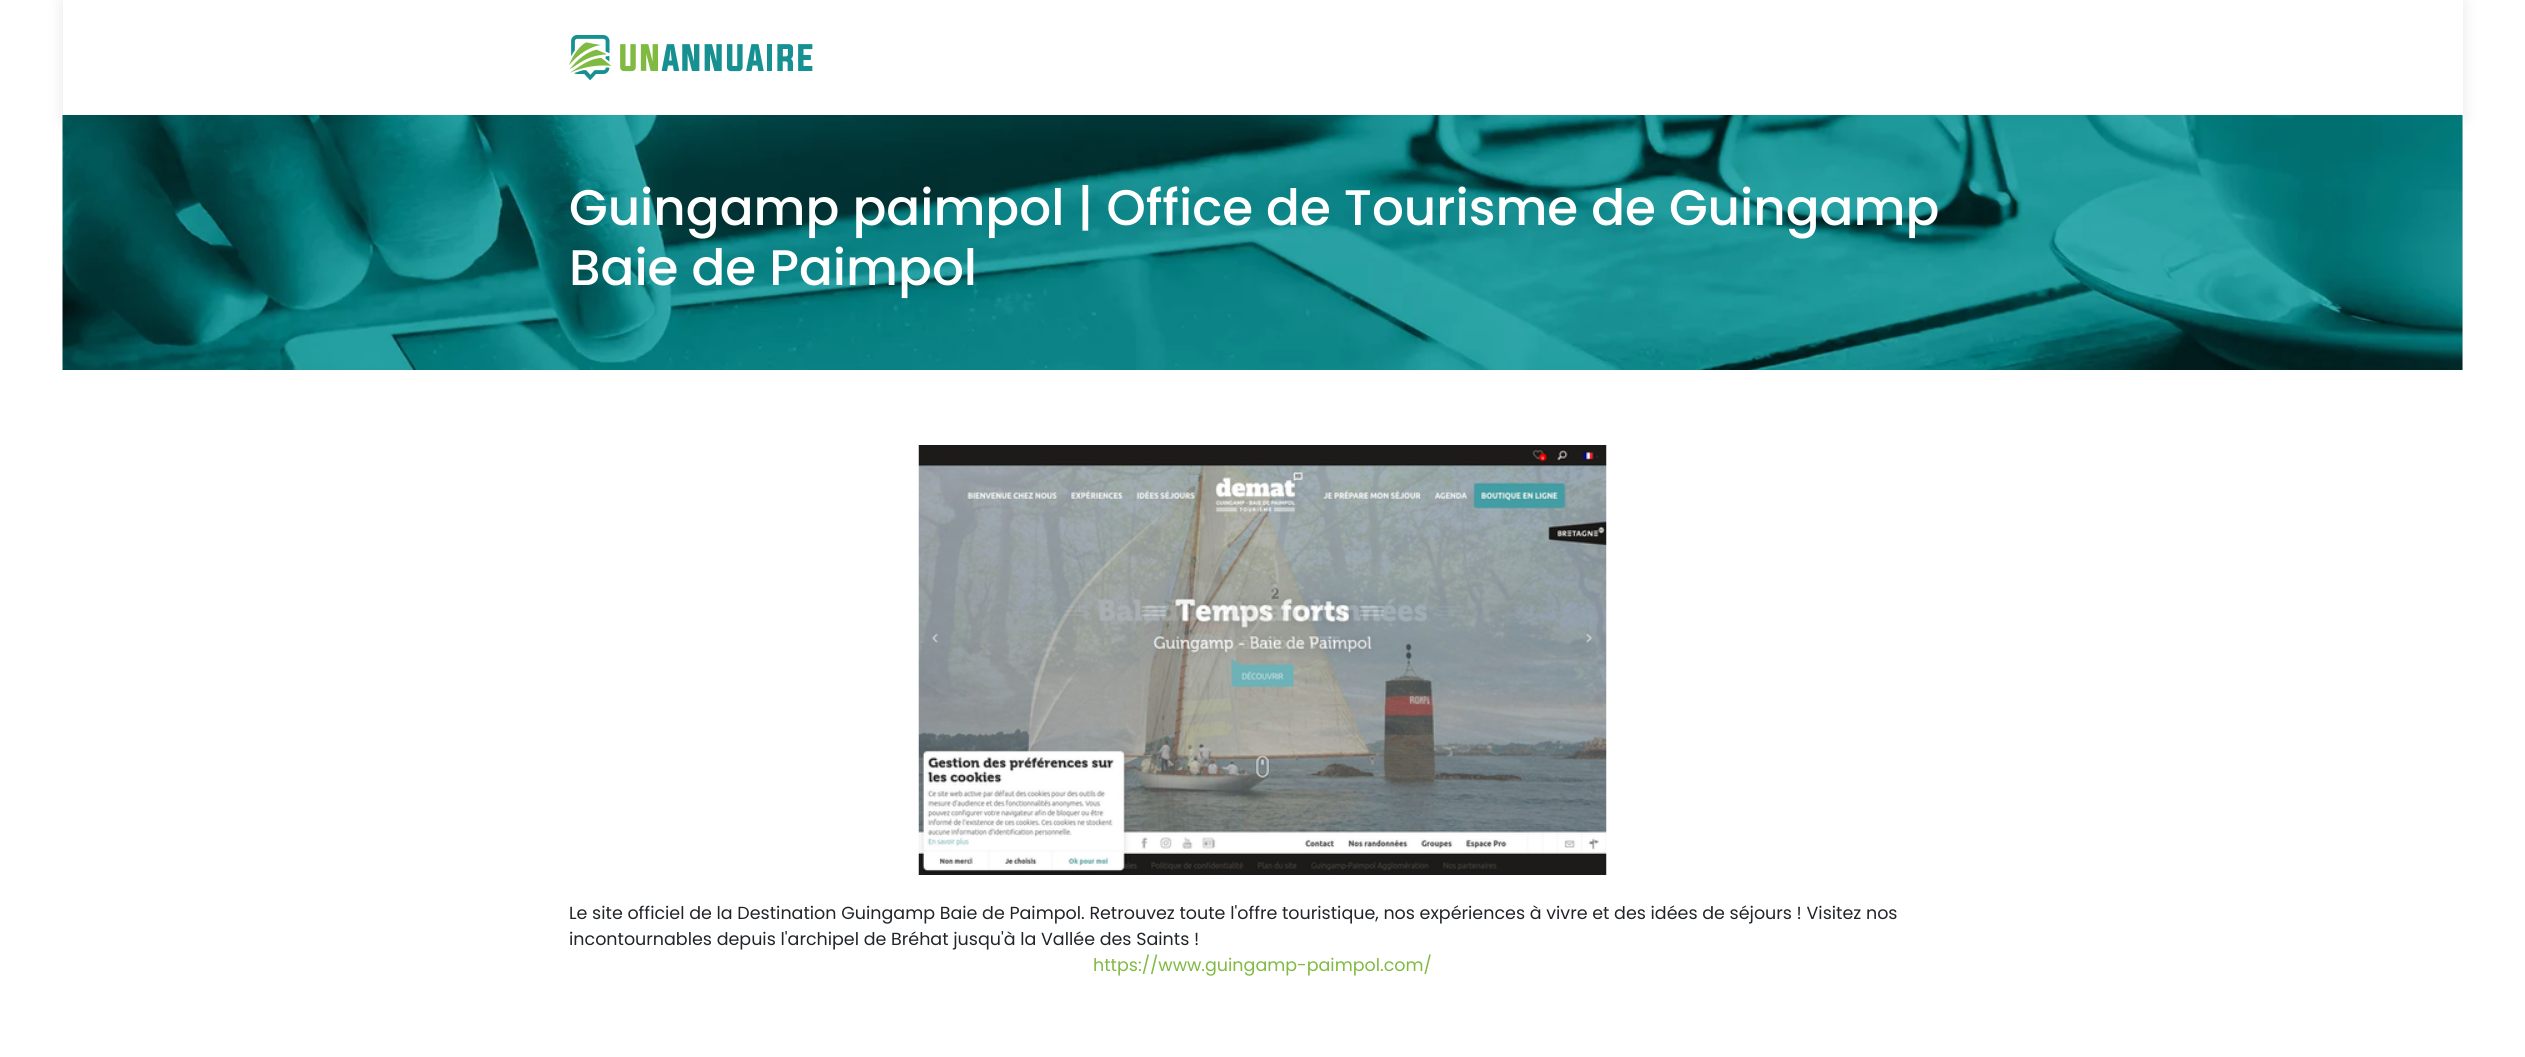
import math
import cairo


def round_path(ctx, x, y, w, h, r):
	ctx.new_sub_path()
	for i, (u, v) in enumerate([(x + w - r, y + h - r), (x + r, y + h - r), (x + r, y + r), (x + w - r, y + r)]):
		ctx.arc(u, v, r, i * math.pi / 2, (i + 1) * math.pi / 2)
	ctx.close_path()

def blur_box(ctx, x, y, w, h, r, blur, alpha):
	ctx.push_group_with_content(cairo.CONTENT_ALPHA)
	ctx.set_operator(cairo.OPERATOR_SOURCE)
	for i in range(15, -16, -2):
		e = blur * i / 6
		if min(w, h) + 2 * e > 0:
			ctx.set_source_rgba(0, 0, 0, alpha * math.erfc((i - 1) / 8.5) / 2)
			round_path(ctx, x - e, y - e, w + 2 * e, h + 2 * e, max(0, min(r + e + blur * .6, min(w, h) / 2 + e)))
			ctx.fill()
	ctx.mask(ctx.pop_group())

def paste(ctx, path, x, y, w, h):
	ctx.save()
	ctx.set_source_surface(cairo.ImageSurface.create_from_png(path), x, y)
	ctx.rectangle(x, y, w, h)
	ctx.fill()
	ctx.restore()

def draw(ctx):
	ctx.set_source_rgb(1, 1, 1)
	ctx.paint()
	ctx.save()
	ctx.set_fill_rule(cairo.FILL_RULE_EVEN_ODD)
	ctx.new_path()
	ctx.move_to(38, 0)
	ctx.line_to(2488, 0)
	ctx.line_to(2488, 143)
	ctx.line_to(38, 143)
	ctx.close_path()
	ctx.move_to(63, 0)
	ctx.line_to(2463, 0)
	ctx.line_to(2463, 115)
	ctx.line_to(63, 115)
	ctx.close_path()
	ctx.clip()
	ctx.set_source_rgb(0, 0, 0)
	blur_box(ctx, 63, 3, 2400, 115, 0, 8, 0.1)
	ctx.restore()
	paste(ctx, 'media/1.png', 569, 35, 244, 45)
	ctx.set_source_rgb(0.933, 0.933, 0.933)
	ctx.rectangle(2462, 115, 1, 255)
	ctx.fill()
	paste(ctx, 'media/2.png', 62, 115, 2401, 255)
	ctx.select_font_face('Poppins Medium')
	ctx.set_font_size(50)
	ctx.set_source_rgb(1, 1, 1)
	ctx.move_to(569, 225)
	ctx.show_text('Guingamp paimpol | Office de Tourisme de Guingamp')
	ctx.move_to(569, 285)
	ctx.show_text('Baie de Paimpol')
	paste(ctx, 'media/3.png', 918, 445, 689, 430)
	ctx.select_font_face('Poppins')
	ctx.set_font_size(17.5)
	ctx.set_source_rgb(0.129, 0.145, 0.161)
	ctx.move_to(569, 919)
	ctx.show_text('Le site officiel de la Destination Guingamp Baie de Paimpol. Retrouvez toute l\'offre touristique, nos expériences à vivre et des idées de séjours ! Visitez nos')
	ctx.move_to(569, 945)
	ctx.show_text('incontournables depuis l\'archipel de Bréhat jusqu\'à la Vallée des Saints !')
	ctx.set_source_rgb(0.502, 0.729, 0.259)
	ctx.move_to(1093, 971)
	ctx.show_text('https://www.guingamp-paimpol.com/')


surface = cairo.ImageSurface(cairo.FORMAT_RGB24, 2525, 1057)
ctx = cairo.Context(surface)
options = cairo.FontOptions()
options.set_hint_metrics(cairo.HINT_METRICS_OFF)
options.set_hint_style(cairo.HINT_STYLE_NONE)
ctx.set_font_options(options)
ctx.set_miter_limit(4)
draw(ctx)
surface.write_to_png('image.png')
